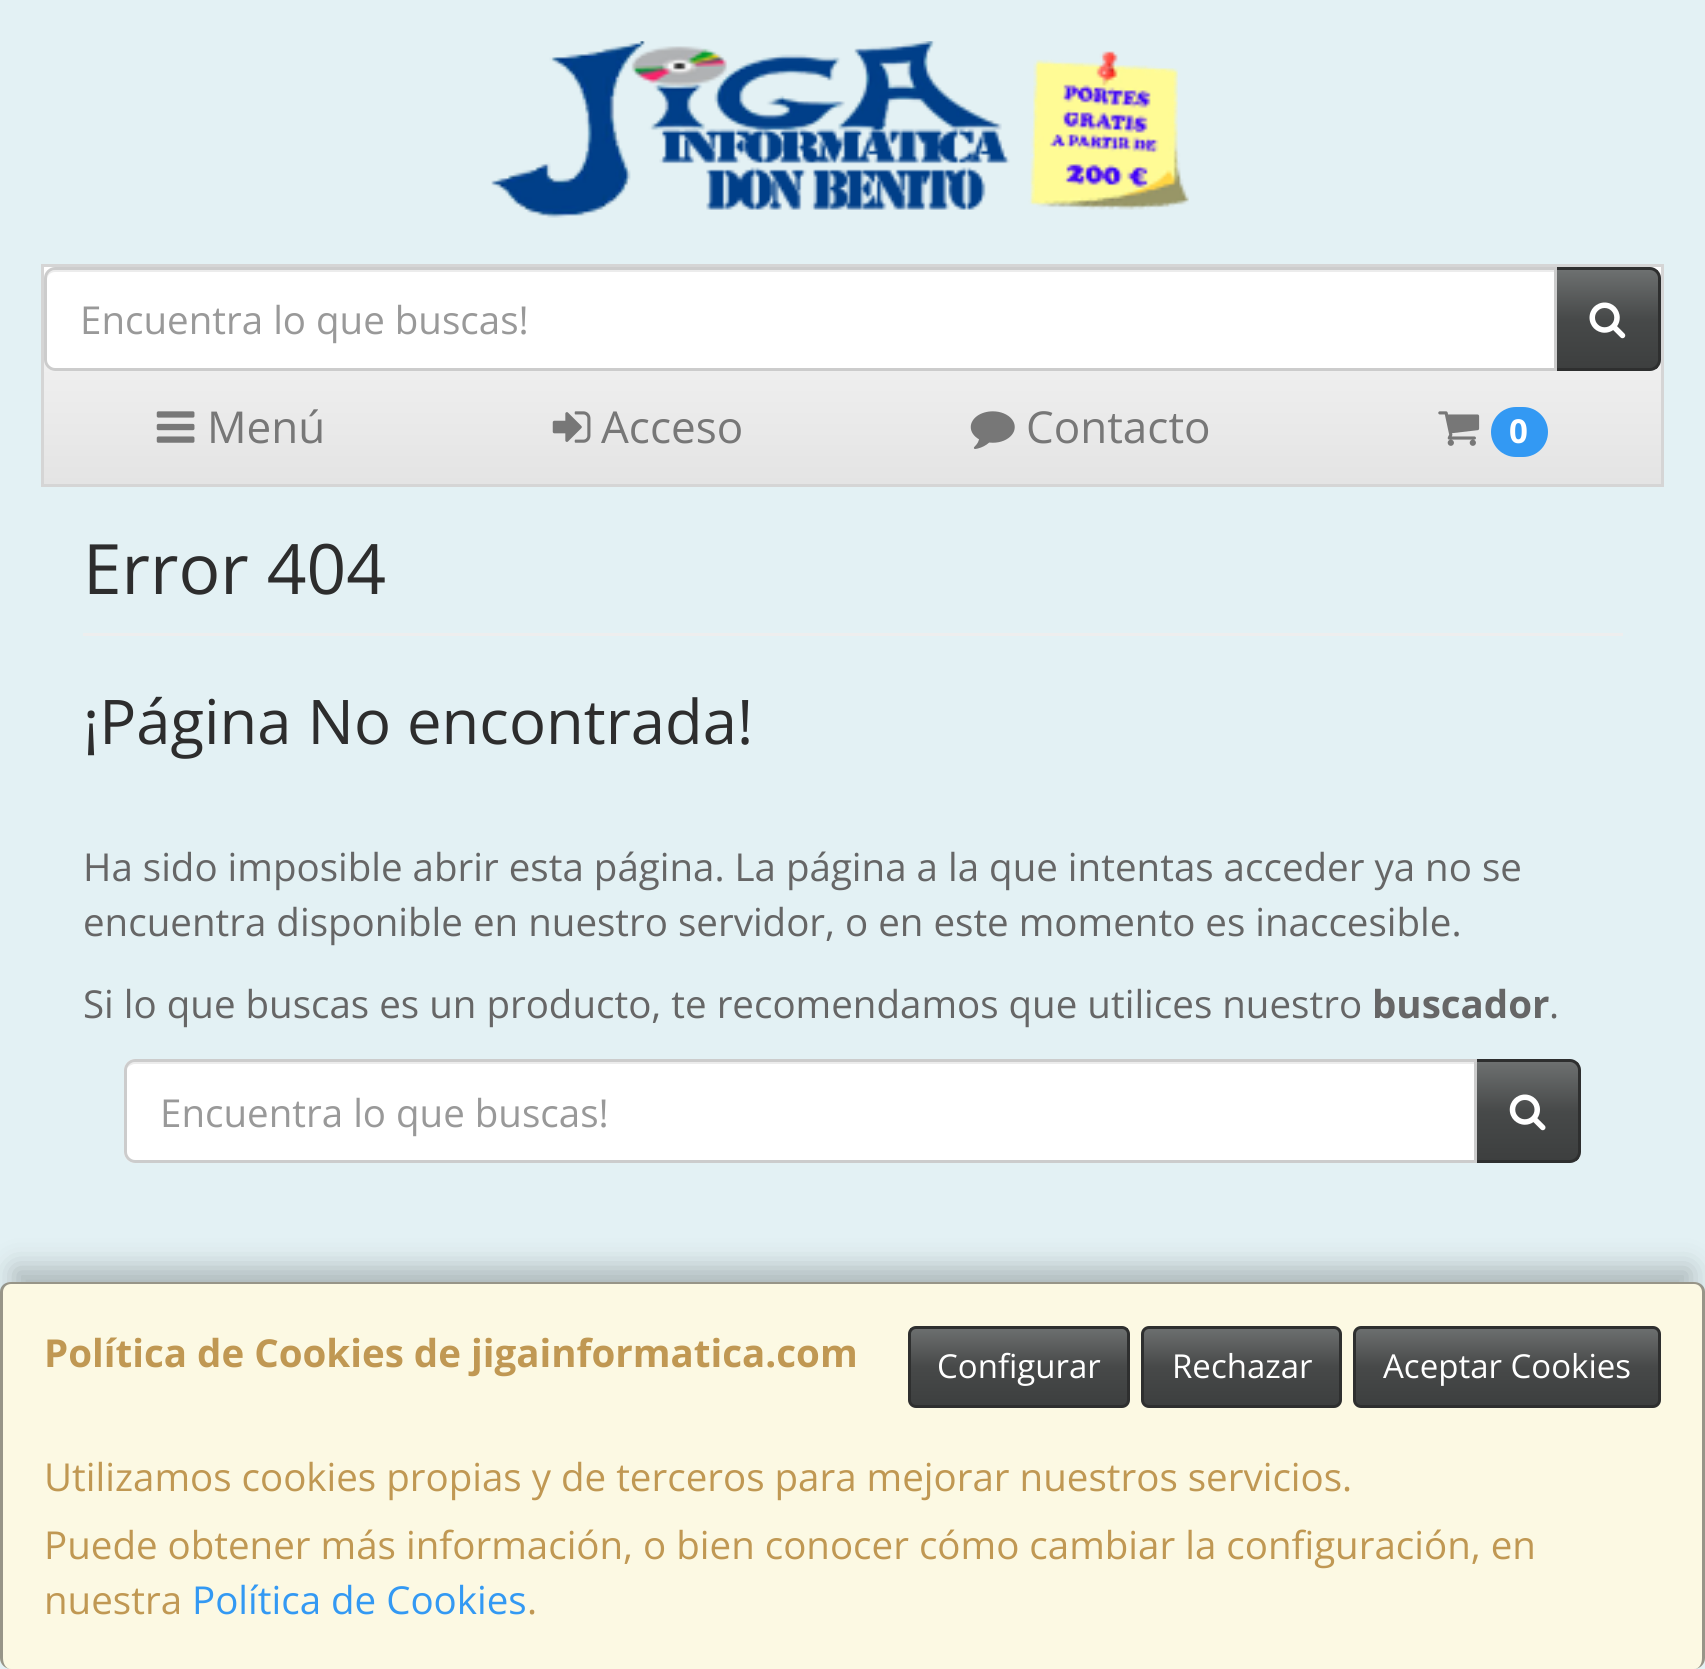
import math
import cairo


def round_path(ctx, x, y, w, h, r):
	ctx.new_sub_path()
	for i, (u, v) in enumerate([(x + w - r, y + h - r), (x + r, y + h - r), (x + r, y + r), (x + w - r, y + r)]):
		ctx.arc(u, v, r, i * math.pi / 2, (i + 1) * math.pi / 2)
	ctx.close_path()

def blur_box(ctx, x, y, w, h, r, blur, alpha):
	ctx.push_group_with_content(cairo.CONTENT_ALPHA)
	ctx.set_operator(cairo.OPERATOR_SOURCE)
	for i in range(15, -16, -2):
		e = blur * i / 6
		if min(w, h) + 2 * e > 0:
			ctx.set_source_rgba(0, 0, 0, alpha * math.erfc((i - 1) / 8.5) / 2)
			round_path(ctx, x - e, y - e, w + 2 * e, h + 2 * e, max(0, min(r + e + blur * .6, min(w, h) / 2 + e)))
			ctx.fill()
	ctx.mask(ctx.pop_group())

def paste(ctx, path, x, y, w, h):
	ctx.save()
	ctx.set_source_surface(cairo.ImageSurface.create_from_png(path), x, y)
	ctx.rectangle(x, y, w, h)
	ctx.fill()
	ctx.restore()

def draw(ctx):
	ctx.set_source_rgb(0.89, 0.945, 0.957)
	ctx.paint()
	paste(ctx, 'media/1.png', 491, 41, 698, 177)
	gradient = cairo.LinearGradient(853, 267, 853, 484)
	gradient.add_color_stop_rgba(0, 1, 1, 1, 1)
	gradient.add_color_stop_rgba(0.5, 0.933, 0.933, 0.933, 1)
	gradient.add_color_stop_rgba(1, 0.894, 0.894, 0.894, 1)
	ctx.set_source(gradient)
	ctx.rectangle(44, 267, 1617, 217)
	ctx.fill()
	ctx.rectangle(42.5, 265.5, 1620, 220)
	ctx.set_source_rgb(0.835, 0.835, 0.835)
	ctx.set_line_width(3)
	ctx.stroke()
	ctx.save()
	ctx.new_path()
	ctx.move_to(1554, 267)
	ctx.line_to(1650, 267)
	ctx.curve_to(1656, 267, 1661, 272, 1661, 278)
	ctx.line_to(1661, 360)
	ctx.curve_to(1661, 366, 1656, 371, 1650, 371)
	ctx.line_to(1554, 371)
	ctx.close_path()
	ctx.clip()
	gradient = cairo.LinearGradient(1607, 270, 1607, 369)
	gradient.add_color_stop_rgba(0, 0.427, 0.439, 0.439, 1)
	gradient.add_color_stop_rgba(0.5, 0.278, 0.286, 0.286, 1)
	gradient.add_color_stop_rgba(1, 0.239, 0.247, 0.247, 1)
	ctx.set_source(gradient)
	ctx.rectangle(1557, 270, 101, 99)
	ctx.fill()
	ctx.restore()
	ctx.new_path()
	ctx.move_to(1555.5, 268.5)
	ctx.line_to(1650, 268.5)
	ctx.curve_to(1655, 268.5, 1659.5, 273, 1659.5, 278)
	ctx.line_to(1659.5, 360)
	ctx.curve_to(1659.5, 365, 1655, 369.5, 1650, 369.5)
	ctx.line_to(1555.5, 369.5)
	ctx.close_path()
	ctx.set_source_rgb(0.18, 0.184, 0.184)
	ctx.stroke()
	ctx.set_source_rgb(1, 1, 1)
	ctx.new_path()
	ctx.move_to(55, 267)
	ctx.line_to(1557, 267)
	ctx.line_to(1557, 371)
	ctx.line_to(55, 371)
	ctx.curve_to(49, 371, 44, 366, 44, 360)
	ctx.line_to(44, 278)
	ctx.curve_to(44, 272, 49, 267, 55, 267)
	ctx.close_path()
	ctx.fill()
	ctx.set_source_rgb(0.925, 0.925, 0.925)
	ctx.new_path()
	ctx.move_to(55, 272)
	ctx.line_to(1554, 272)
	ctx.line_to(1554, 270)
	ctx.line_to(55, 270)
	ctx.curve_to(51, 270, 47, 274, 47, 278)
	ctx.line_to(47, 280)
	ctx.curve_to(47, 276, 50, 272, 55, 272)
	ctx.close_path()
	ctx.fill()
	ctx.new_path()
	ctx.move_to(55, 268.5)
	ctx.line_to(1555.5, 268.5)
	ctx.line_to(1555.5, 369.5)
	ctx.line_to(55, 369.5)
	ctx.curve_to(50, 369.5, 45.5, 365, 45.5, 360)
	ctx.line_to(45.5, 278)
	ctx.curve_to(45.5, 273, 50, 268.5, 55, 268.5)
	ctx.close_path()
	ctx.set_source_rgb(0.8, 0.8, 0.8)
	ctx.stroke()
	ctx.select_font_face('Open Sans')
	ctx.set_font_size(38.5)
	ctx.set_source_rgb(0.6, 0.6, 0.6)
	ctx.move_to(80, 334)
	ctx.show_text('Encuentra lo que buscas!')
	paste(ctx, 'media/2.png', 1589, 302, 37, 37)
	paste(ctx, 'media/3.png', 156, 411, 39, 32)
	ctx.set_font_size(44)
	ctx.set_source_rgb(0.467, 0.467, 0.467)
	ctx.move_to(207, 443)
	ctx.show_text('Menú')
	paste(ctx, 'media/4.png', 552, 411, 39, 32)
	ctx.move_to(601, 443)
	ctx.show_text('Acceso')
	paste(ctx, 'media/5.png', 970, 411, 45, 38)
	ctx.move_to(1026, 443)
	ctx.show_text('Contacto')
	paste(ctx, 'media/6.png', 1438, 411, 42, 35)
	ctx.set_source_rgb(0.2, 0.6, 0.953)
	round_path(ctx, 1491, 407, 57, 50, 25)
	ctx.fill()
	ctx.select_font_face('Open Sans', cairo.FONT_SLANT_NORMAL, cairo.FONT_WEIGHT_BOLD)
	ctx.set_font_size(33)
	ctx.set_source_rgb(1, 1, 1)
	ctx.move_to(1509, 443)
	ctx.show_text('0')
	ctx.set_source_rgb(0.933, 0.933, 0.933)
	ctx.rectangle(83, 633, 1540, 3)
	ctx.fill()
	ctx.select_font_face('Open Sans')
	ctx.set_font_size(69.5)
	ctx.set_source_rgb(0.176, 0.176, 0.176)
	ctx.move_to(83, 594)
	ctx.show_text('Error 404')
	ctx.set_font_size(61.6)
	ctx.move_to(83, 744)
	ctx.show_text('¡Página No encontrada!')
	ctx.set_font_size(38.5)
	ctx.set_source_rgb(0.4, 0.4, 0.4)
	for x, y, s in [
		(83, 881, 'Ha sido imposible abrir esta página. La página a la que intentas acceder ya no se'),
		(83, 936, 'encuentra disponible en nuestro servidor, o en este momento es inaccesible.'),
		(83, 1018, 'Si lo que buscas es un producto, te recomendamos que utilices nuestro'),
	]:
		ctx.move_to(x, y)
		ctx.show_text(s)
	ctx.select_font_face('Open Sans', cairo.FONT_SLANT_NORMAL, cairo.FONT_WEIGHT_BOLD)
	ctx.move_to(1372, 1018)
	ctx.show_text('buscador')
	ctx.select_font_face('Open Sans')
	ctx.move_to(1549, 1018)
	ctx.show_text('.')
	ctx.save()
	ctx.new_path()
	ctx.move_to(1474, 1059)
	ctx.line_to(1570, 1059)
	ctx.curve_to(1576, 1059, 1581, 1064, 1581, 1070)
	ctx.line_to(1581, 1152)
	ctx.curve_to(1581, 1158, 1576, 1163, 1570, 1163)
	ctx.line_to(1474, 1163)
	ctx.close_path()
	ctx.clip()
	gradient = cairo.LinearGradient(1528, 1062, 1528, 1161)
	gradient.add_color_stop_rgba(0, 0.427, 0.439, 0.439, 1)
	gradient.add_color_stop_rgba(0.5, 0.278, 0.286, 0.286, 1)
	gradient.add_color_stop_rgba(1, 0.239, 0.247, 0.247, 1)
	ctx.set_source(gradient)
	ctx.rectangle(1477, 1062, 102, 99)
	ctx.fill()
	ctx.restore()
	ctx.new_path()
	ctx.move_to(1475.5, 1060.5)
	ctx.line_to(1570, 1060.5)
	ctx.curve_to(1575, 1060.5, 1579.5, 1065, 1579.5, 1070)
	ctx.line_to(1579.5, 1152)
	ctx.curve_to(1579.5, 1157, 1575, 1161.5, 1570, 1161.5)
	ctx.line_to(1475.5, 1161.5)
	ctx.close_path()
	ctx.set_source_rgb(0.18, 0.184, 0.184)
	ctx.stroke()
	ctx.set_source_rgb(1, 1, 1)
	ctx.new_path()
	ctx.move_to(135, 1059)
	ctx.line_to(1477, 1059)
	ctx.line_to(1477, 1163)
	ctx.line_to(135, 1163)
	ctx.curve_to(129, 1163, 124, 1158, 124, 1152)
	ctx.line_to(124, 1070)
	ctx.curve_to(124, 1064, 129, 1059, 135, 1059)
	ctx.close_path()
	ctx.fill()
	ctx.set_source_rgb(0.925, 0.925, 0.925)
	ctx.new_path()
	ctx.move_to(135, 1064)
	ctx.line_to(1474, 1064)
	ctx.line_to(1474, 1062)
	ctx.line_to(135, 1062)
	ctx.curve_to(131, 1062, 128, 1065, 127, 1068)
	ctx.curve_to(129, 1066, 132, 1064, 135, 1064)
	ctx.close_path()
	ctx.fill()
	ctx.new_path()
	ctx.move_to(135, 1060.5)
	ctx.line_to(1475.5, 1060.5)
	ctx.line_to(1475.5, 1161.5)
	ctx.line_to(135, 1161.5)
	ctx.curve_to(130, 1161.5, 125.5, 1157, 125.5, 1152)
	ctx.line_to(125.5, 1070)
	ctx.curve_to(125.5, 1065, 130, 1060.5, 135, 1060.5)
	ctx.close_path()
	ctx.set_source_rgb(0.8, 0.8, 0.8)
	ctx.stroke()
	ctx.set_source_rgb(0.6, 0.6, 0.6)
	ctx.move_to(160, 1127)
	ctx.show_text('Encuentra lo que buscas!')
	paste(ctx, 'media/7.png', 1509, 1094, 37, 37)
	ctx.set_source_rgb(0, 0, 0)
	blur_box(ctx, 14, 1268, 1677, 360, 0, 14, 0.25)
	ctx.set_source_rgb(0.988, 0.973, 0.89)
	round_path(ctx, 0, 1282, 1705, 387, 11)
	ctx.fill()
	ctx.set_source_rgba(0, 0, 0, 0.4)
	ctx.set_fill_rule(cairo.FILL_RULE_EVEN_ODD)
	ctx.new_path()
	ctx.move_to(11, 1282)
	ctx.line_to(1694, 1282)
	ctx.curve_to(1700, 1282, 1705, 1286, 1705, 1292)
	ctx.line_to(1705, 1658)
	ctx.curve_to(1705, 1664, 1700, 1669, 1694, 1669)
	ctx.line_to(11, 1669)
	ctx.curve_to(5, 1669, 0, 1664, 0, 1658)
	ctx.line_to(0, 1292)
	ctx.curve_to(0, 1286, 5, 1282, 11, 1282)
	ctx.close_path()
	ctx.move_to(11, 1284)
	ctx.line_to(1694, 1284)
	ctx.curve_to(1699, 1284, 1702, 1288, 1702, 1292)
	ctx.line_to(1702, 1658)
	ctx.curve_to(1702, 1664, 1699, 1669, 1694, 1669)
	ctx.line_to(11, 1669)
	ctx.curve_to(6, 1669, 3, 1664, 3, 1658)
	ctx.line_to(3, 1292)
	ctx.curve_to(3, 1288, 6, 1284, 11, 1284)
	ctx.close_path()
	ctx.fill()
	ctx.select_font_face('Open Sans', cairo.FONT_SLANT_NORMAL, cairo.FONT_WEIGHT_BOLD)
	ctx.set_source_rgb(0.753, 0.596, 0.325)
	ctx.move_to(44, 1367)
	ctx.show_text('Política de Cookies de jigainformatica.com')
	gradient = cairo.LinearGradient(1019, 1328, 1019, 1405)
	gradient.add_color_stop_rgba(0, 0.427, 0.439, 0.439, 1)
	gradient.add_color_stop_rgba(0.5, 0.278, 0.286, 0.286, 1)
	gradient.add_color_stop_rgba(1, 0.239, 0.247, 0.247, 1)
	ctx.set_source(gradient)
	ctx.rectangle(910, 1328, 218, 77)
	ctx.fill()
	round_path(ctx, 909.5, 1327.5, 219, 79, 6.5)
	ctx.set_source_rgb(0.18, 0.184, 0.184)
	ctx.stroke()
	ctx.select_font_face('Open Sans')
	ctx.set_font_size(33)
	ctx.set_source_rgb(1, 1, 1)
	ctx.move_to(937, 1378)
	ctx.show_text('Configurar')
	gradient = cairo.LinearGradient(1242, 1328, 1242, 1405)
	gradient.add_color_stop_rgba(0, 0.427, 0.439, 0.439, 1)
	gradient.add_color_stop_rgba(0.5, 0.278, 0.286, 0.286, 1)
	gradient.add_color_stop_rgba(1, 0.239, 0.247, 0.247, 1)
	ctx.set_source(gradient)
	ctx.rectangle(1144, 1329, 195, 76)
	ctx.fill()
	round_path(ctx, 1142.5, 1327.5, 198, 79, 6.5)
	ctx.set_source_rgb(0.18, 0.184, 0.184)
	ctx.stroke()
	ctx.set_source_rgb(1, 1, 1)
	ctx.move_to(1172, 1378)
	ctx.show_text('Rechazar')
	gradient = cairo.LinearGradient(1507, 1328, 1507, 1405)
	gradient.add_color_stop_rgba(0, 0.427, 0.439, 0.439, 1)
	gradient.add_color_stop_rgba(0.5, 0.278, 0.286, 0.286, 1)
	gradient.add_color_stop_rgba(1, 0.239, 0.247, 0.247, 1)
	ctx.set_source(gradient)
	ctx.rectangle(1356, 1329, 302, 76)
	ctx.fill()
	round_path(ctx, 1354.5, 1327.5, 305, 79, 6.5)
	ctx.set_source_rgb(0.18, 0.184, 0.184)
	ctx.stroke()
	ctx.set_source_rgb(1, 1, 1)
	ctx.move_to(1383, 1378)
	ctx.show_text('Aceptar Cookies')
	ctx.set_font_size(38.5)
	ctx.set_source_rgb(0.753, 0.596, 0.325)
	for x, y, s in [
		(44, 1491, 'Utilizamos cookies propias y de terceros para mejorar nuestros servicios.'),
		(44, 1559, 'Puede obtener más información, o bien conocer cómo cambiar la configuración, en'),
		(44, 1614, 'nuestra'),
	]:
		ctx.move_to(x, y)
		ctx.show_text(s)
	ctx.set_source_rgb(0.2, 0.6, 0.953)
	ctx.move_to(192, 1614)
	ctx.show_text('Política de Cookies')
	ctx.set_source_rgb(0.753, 0.596, 0.325)
	ctx.move_to(527, 1614)
	ctx.show_text('.')


surface = cairo.ImageSurface(cairo.FORMAT_RGB24, 1705, 1669)
ctx = cairo.Context(surface)
options = cairo.FontOptions()
options.set_hint_metrics(cairo.HINT_METRICS_OFF)
options.set_hint_style(cairo.HINT_STYLE_NONE)
ctx.set_font_options(options)
ctx.set_miter_limit(4)
draw(ctx)
surface.write_to_png('image.png')
